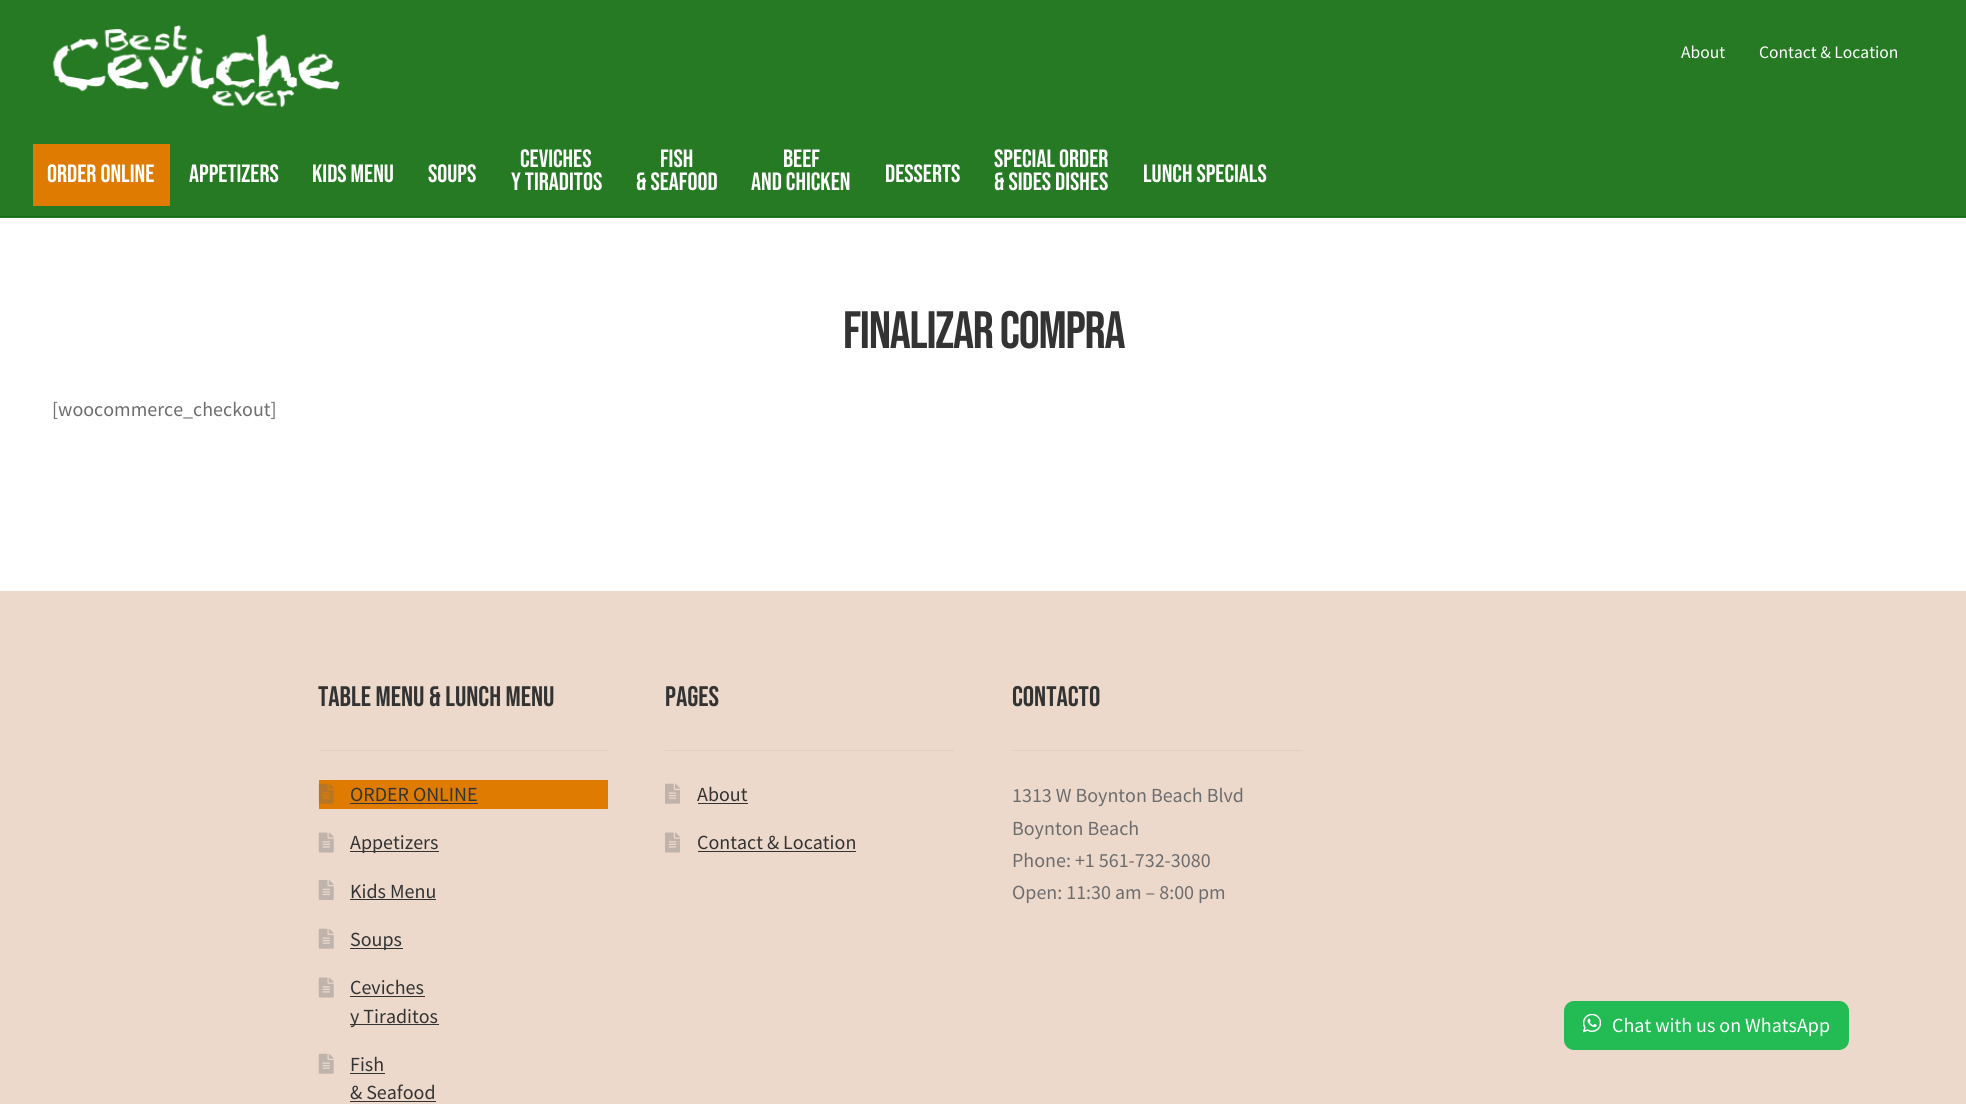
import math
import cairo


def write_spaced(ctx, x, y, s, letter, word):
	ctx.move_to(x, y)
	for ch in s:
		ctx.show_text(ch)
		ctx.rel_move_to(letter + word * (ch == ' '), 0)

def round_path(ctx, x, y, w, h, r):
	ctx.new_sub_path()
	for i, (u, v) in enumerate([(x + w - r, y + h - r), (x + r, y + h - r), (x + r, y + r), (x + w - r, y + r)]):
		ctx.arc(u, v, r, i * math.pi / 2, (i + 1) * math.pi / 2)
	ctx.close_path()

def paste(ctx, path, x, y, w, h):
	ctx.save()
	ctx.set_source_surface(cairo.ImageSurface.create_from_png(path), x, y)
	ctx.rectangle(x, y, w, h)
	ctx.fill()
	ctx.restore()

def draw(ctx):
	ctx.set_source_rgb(1, 1, 1)
	ctx.paint()
	ctx.set_source_rgb(0.149, 0.478, 0.141)
	ctx.rectangle(0, 0, 1966, 218)
	ctx.fill()
	ctx.set_source_rgb(0.09, 0.42, 0.082)
	ctx.rectangle(0, 216, 1966, 1)
	ctx.fill()
	paste(ctx, 'media/1.png', 52, 25, 288, 83)
	ctx.select_font_face('Source Sans Pro')
	ctx.set_font_size(17.5)
	ctx.set_source_rgb(1, 1, 1)
	ctx.move_to(1681, 58)
	ctx.show_text('About')
	ctx.move_to(1759, 58)
	ctx.show_text('Contact & Location')
	ctx.set_source_rgb(0.871, 0.482, 0)
	ctx.rectangle(33, 144, 137, 62)
	ctx.fill()
	ctx.select_font_face('Bebas Neue')
	ctx.set_font_size(25)
	ctx.set_source_rgb(1, 1, 1)
	for x, y, s in [
		(47, 182, 'ORDER ONLINE'),
		(189, 182, 'Appetizers'),
		(312, 182, 'Kids Menu'),
		(428, 182, 'Soups'),
		(520, 167, 'Ceviches'),
		(511, 190, 'y Tiraditos'),
		(660, 167, 'Fish'),
		(636, 190, '& Seafood'),
		(783, 167, 'Beef'),
		(751, 190, 'and Chicken'),
		(885, 182, 'Desserts'),
		(994, 167, 'Special Order'),
		(994, 190, '& Sides Dishes'),
		(1143, 182, 'Lunch Specials'),
	]:
		ctx.move_to(x, y)
		ctx.show_text(s)
	ctx.set_font_size(52.5)
	ctx.set_source_rgb(0.2, 0.2, 0.2)
	write_spaced(ctx, 843, 348, 'Finalizar compra', -1.25, 0)
	ctx.select_font_face('Source Sans Pro')
	ctx.set_font_size(20)
	ctx.set_source_rgb(0.427, 0.427, 0.427)
	ctx.move_to(52, 416)
	ctx.show_text('[woocommerce_checkout]')
	ctx.set_source_rgb(0.925, 0.851, 0.8)
	ctx.rectangle(0, 591, 1966, 513)
	ctx.fill()
	ctx.set_source_rgb(0.878, 0.808, 0.761)
	ctx.rectangle(319, 750, 289, 1)
	ctx.fill()
	ctx.select_font_face('Bebas Neue')
	ctx.set_font_size(28.25)
	ctx.set_source_rgb(0.2, 0.2, 0.2)
	ctx.move_to(318, 706)
	ctx.show_text('Table Menu & Lunch Menu')
	ctx.set_source_rgb(0.871, 0.482, 0)
	ctx.rectangle(319, 780, 289, 29)
	ctx.fill()
	paste(ctx, 'media/2.png', 318, 783, 16, 21)
	ctx.select_font_face('Source Sans Pro')
	ctx.set_font_size(20)
	ctx.set_source_rgb(0.2, 0.2, 0.2)
	ctx.move_to(350, 801)
	ctx.show_text('ORDER ONLINE')
	ctx.rectangle(350, 803, 128, 1)
	ctx.fill()
	paste(ctx, 'media/3.png', 318, 832, 16, 21)
	ctx.rectangle(350, 851, 89, 1)
	ctx.fill()
	ctx.move_to(350, 849)
	ctx.show_text('Appetizers')
	paste(ctx, 'media/4.png', 318, 880, 16, 20)
	ctx.move_to(350, 898)
	ctx.show_text('Kids Menu')
	ctx.rectangle(350, 899, 86, 1)
	ctx.fill()
	paste(ctx, 'media/5.png', 318, 928, 16, 21)
	ctx.rectangle(350, 948, 53, 1)
	ctx.fill()
	ctx.move_to(350, 946)
	ctx.show_text('Soups')
	paste(ctx, 'media/3.png', 318, 977, 16, 21)
	ctx.move_to(350, 994)
	ctx.show_text('Ceviches')
	ctx.rectangle(350, 996, 75, 1)
	ctx.fill()
	ctx.rectangle(350, 1024, 89, 1)
	ctx.fill()
	ctx.move_to(350, 1023)
	ctx.show_text('y Tiraditos')
	paste(ctx, 'media/5.png', 318, 1053, 16, 21)
	ctx.move_to(350, 1071)
	ctx.show_text('Fish')
	ctx.rectangle(350, 1073, 35, 1)
	ctx.fill()
	ctx.move_to(350, 1099)
	ctx.show_text('& Seafood')
	ctx.rectangle(350, 1101, 86, 1)
	ctx.fill()
	ctx.set_source_rgb(0.878, 0.808, 0.761)
	ctx.rectangle(665, 750, 289, 1)
	ctx.fill()
	ctx.select_font_face('Bebas Neue')
	ctx.set_font_size(28.25)
	ctx.set_source_rgb(0.2, 0.2, 0.2)
	ctx.move_to(665, 706)
	ctx.show_text('Pages')
	paste(ctx, 'media/6.png', 665, 783, 15, 21)
	ctx.select_font_face('Source Sans Pro')
	ctx.set_font_size(20)
	ctx.move_to(697, 801)
	ctx.show_text('About')
	ctx.rectangle(698, 803, 50, 1)
	ctx.fill()
	paste(ctx, 'media/7.png', 665, 832, 15, 21)
	ctx.move_to(697, 849)
	ctx.show_text('Contact & Location')
	ctx.rectangle(698, 851, 158, 1)
	ctx.fill()
	ctx.set_source_rgb(0.878, 0.808, 0.761)
	ctx.rectangle(1013, 750, 288, 1)
	ctx.fill()
	ctx.select_font_face('Bebas Neue')
	ctx.set_font_size(28.25)
	ctx.set_source_rgb(0.2, 0.2, 0.2)
	ctx.move_to(1012, 706)
	ctx.show_text('CONTACTO')
	ctx.select_font_face('Source Sans Pro')
	ctx.set_font_size(20)
	ctx.set_source_rgb(0.427, 0.427, 0.427)
	for x, y, s in [
		(1012, 802, '1313 W Boynton Beach Blvd'),
		(1012, 835, 'Boynton Beach'),
		(1012, 867, 'Phone: +1 561-732-3080'),
		(1012, 899, 'Open: 11:30 am – 8:00 pm'),
	]:
		ctx.move_to(x, y)
		ctx.show_text(s)
	ctx.set_source_rgb(0.137, 0.733, 0.325)
	round_path(ctx, 1564, 1001, 285, 49, 10)
	ctx.fill()
	paste(ctx, 'media/8.png', 1583, 1014, 18, 19)
	ctx.set_source_rgb(1, 1, 1)
	ctx.move_to(1612, 1032)
	ctx.show_text('Chat with us on WhatsApp')


surface = cairo.ImageSurface(cairo.FORMAT_RGB24, 1966, 1104)
ctx = cairo.Context(surface)
options = cairo.FontOptions()
options.set_hint_metrics(cairo.HINT_METRICS_OFF)
options.set_hint_style(cairo.HINT_STYLE_NONE)
ctx.set_font_options(options)
ctx.set_miter_limit(4)
draw(ctx)
surface.write_to_png('image.png')
